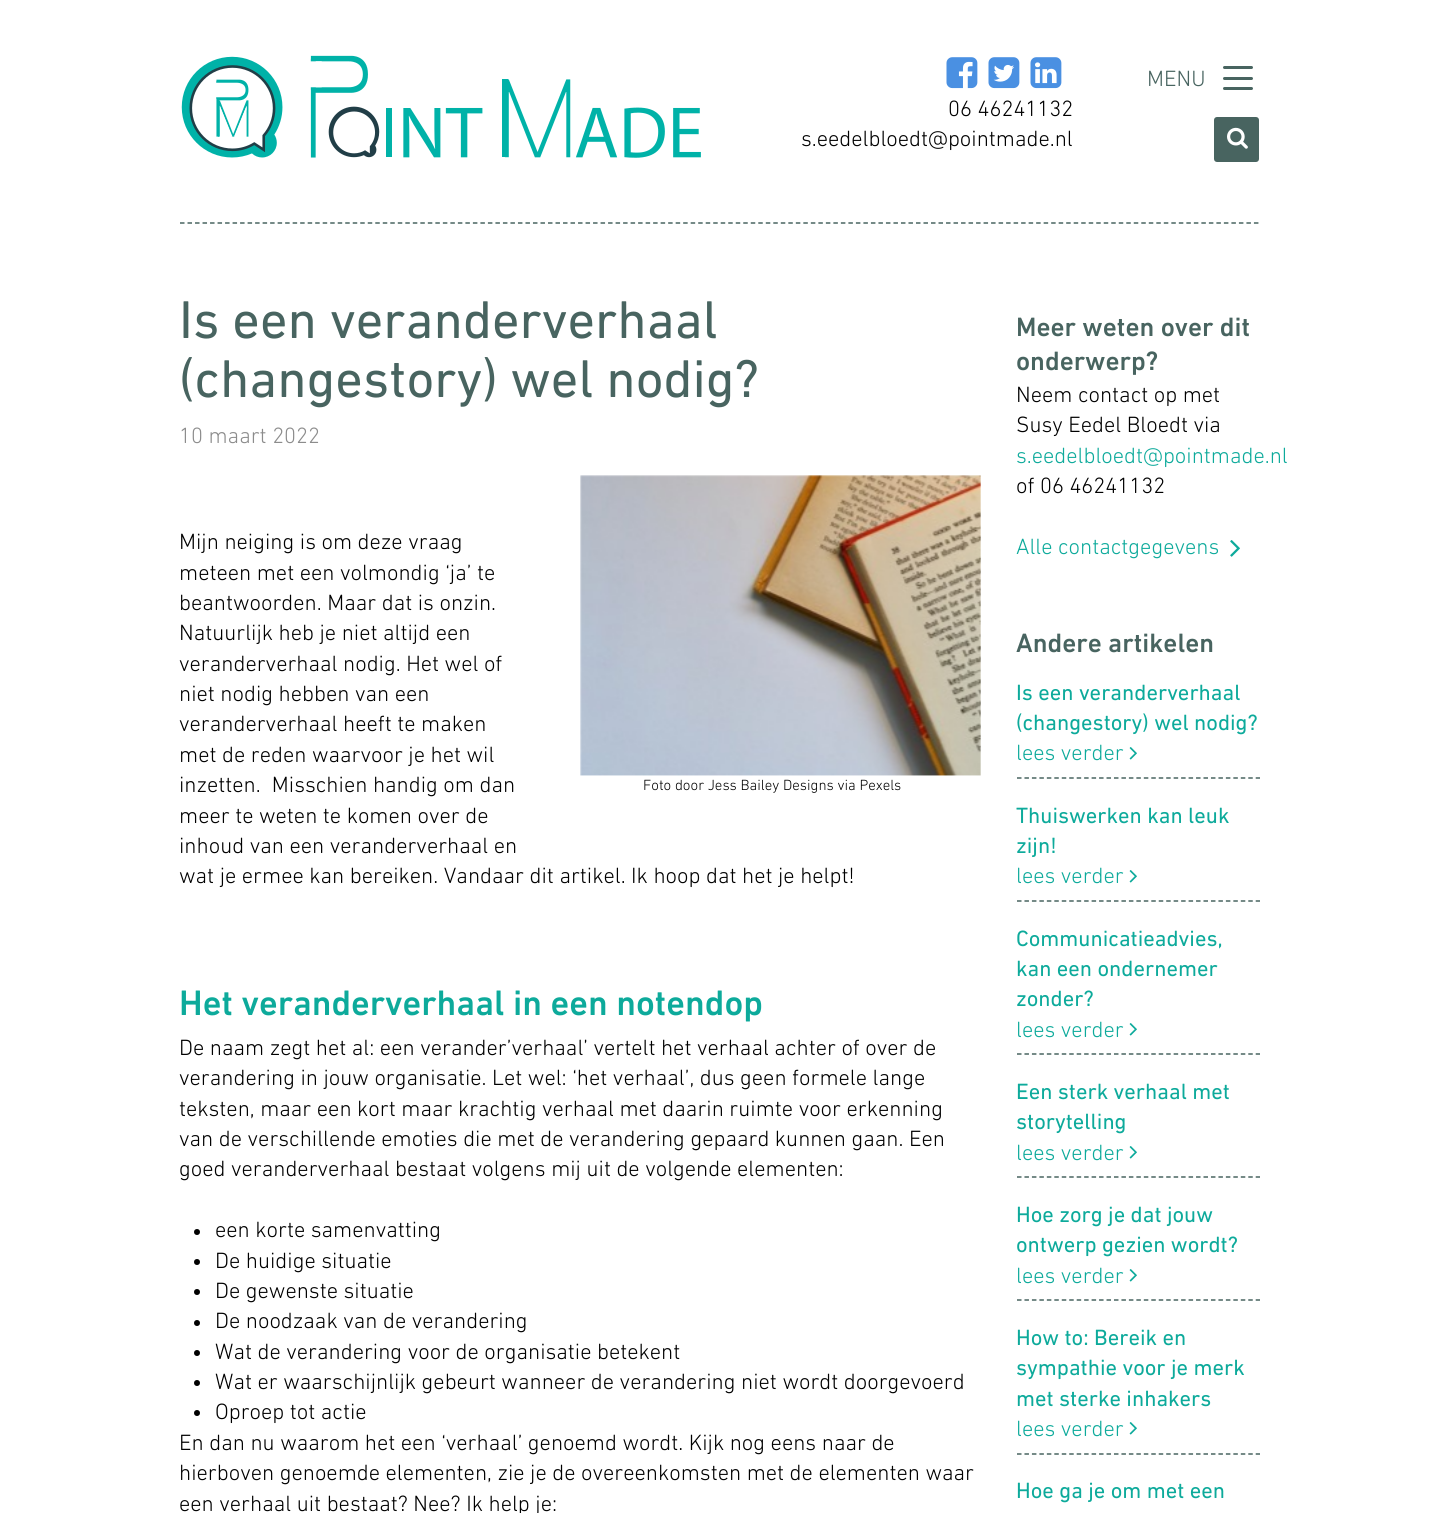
import math
import cairo


def round_path(ctx, x, y, w, h, r):
	ctx.new_sub_path()
	for i, (u, v) in enumerate([(x + w - r, y + h - r), (x + r, y + h - r), (x + r, y + r), (x + w - r, y + r)]):
		ctx.arc(u, v, r, i * math.pi / 2, (i + 1) * math.pi / 2)
	ctx.close_path()

def paste(ctx, path, x, y, w, h):
	ctx.save()
	ctx.set_source_surface(cairo.ImageSurface.create_from_png(path), x, y)
	ctx.rectangle(x, y, w, h)
	ctx.fill()
	ctx.restore()

def draw(ctx):
	ctx.set_source_rgb(1, 1, 1)
	ctx.paint()
	paste(ctx, 'media/1.png', 181, 55, 520, 103)
	ctx.select_font_face('DIN Next Light')
	ctx.set_font_size(22.5)
	ctx.set_source_rgb(0.282, 0.392, 0.376)
	ctx.move_to(1147, 86)
	ctx.show_text('MENU')
	round_path(ctx, 1223, 66, 30, 3, 1.5)
	ctx.fill()
	round_path(ctx, 1223, 77, 30, 3, 1.5)
	ctx.fill()
	round_path(ctx, 1223, 87, 30, 3, 1.5)
	ctx.fill()
	round_path(ctx, 1214, 117, 45, 45, 3)
	ctx.fill()
	paste(ctx, 'media/2.png', 1227, 127, 21, 22)
	paste(ctx, 'media/3.png', 946, 57, 32, 32)
	paste(ctx, 'media/4.png', 988, 57, 32, 32)
	paste(ctx, 'media/5.png', 1030, 57, 32, 32)
	ctx.set_source_rgb(0, 0, 0)
	ctx.move_to(948, 116)
	ctx.show_text('06 46241132')
	ctx.move_to(801, 146)
	ctx.show_text('s.eedelbloedt@pointmade.nl')
	ctx.new_path()
	ctx.move_to(180, 223)
	ctx.line_to(1260, 223)
	ctx.set_source_rgb(0.282, 0.392, 0.376)
	ctx.set_line_width(1.5)
	ctx.set_dash([4.5, 3.01])
	ctx.stroke()
	ctx.select_font_face('DIN Next')
	ctx.set_font_size(54)
	ctx.move_to(179, 338)
	ctx.show_text('Is een veranderverhaal')
	ctx.move_to(179, 397)
	ctx.show_text('(changestory) wel nodig?')
	ctx.select_font_face('DIN Next Light')
	ctx.set_font_size(22.5)
	ctx.set_source_rgb(0.549, 0.549, 0.549)
	ctx.move_to(179, 443)
	ctx.show_text('10 maart 2022')
	ctx.set_source_rgb(0, 0, 0)
	for x, y, s in [
		(179, 549, 'Mijn neiging is om deze vraag'),
		(179, 580, 'meteen met een volmondig ‘ja’ te'),
		(179, 610, 'beantwoorden. Maar dat is onzin.'),
		(179, 640, 'Natuurlijk heb je niet altijd een'),
		(179, 671, 'veranderverhaal nodig. Het wel of'),
		(179, 701, 'niet nodig hebben van een'),
		(179, 731, 'veranderverhaal heeft te maken'),
		(179, 762, 'met de reden waarvoor je het wil'),
		(179, 792, 'inzetten.  Misschien handig om dan'),
		(179, 823, 'meer te weten te komen over de'),
		(179, 853, 'inhoud van een veranderverhaal en'),
		(179, 883, 'wat je ermee kan bereiken. Vandaar dit artikel. Ik hoop dat het je helpt!'),
	]:
		ctx.move_to(x, y)
		ctx.show_text(s)
	paste(ctx, 'media/6.png', 580, 475, 401, 301)
	ctx.set_font_size(15)
	ctx.move_to(643, 790)
	ctx.show_text('Foto door Jess Bailey Designs via Pexels')
	ctx.select_font_face('DIN Next Medium')
	ctx.set_font_size(36)
	ctx.set_source_rgb(0.051, 0.667, 0.608)
	ctx.move_to(179, 1015)
	ctx.show_text('Het veranderverhaal in een notendop')
	ctx.select_font_face('DIN Next Light')
	ctx.set_font_size(22.5)
	ctx.set_source_rgb(0, 0, 0)
	for x, y, s in [
		(179, 1055, 'De naam zegt het al: een verander’verhaal’ vertelt het verhaal achter of over de'),
		(179, 1085, 'verandering in jouw organisatie. Let wel: ‘het verhaal’, dus geen formele lange'),
		(179, 1116, 'teksten, maar een kort maar krachtig verhaal met daarin ruimte voor erkenning'),
		(179, 1146, 'van de verschillende emoties die met de verandering gepaard kunnen gaan. Een'),
		(179, 1176, 'goed veranderverhaal bestaat volgens mij uit de volgende elementen:'),
	]:
		ctx.move_to(x, y)
		ctx.show_text(s)
	ctx.new_path()
	ctx.arc(197, 1232, 3, 0, 2 * math.pi)
	ctx.fill()
	ctx.move_to(215, 1237)
	ctx.show_text('een korte samenvatting')
	ctx.new_path()
	ctx.arc(197, 1262, 3, 0, 2 * math.pi)
	ctx.fill()
	ctx.move_to(215, 1268)
	ctx.show_text('De huidige situatie')
	ctx.new_path()
	ctx.arc(197, 1292, 3, 0, 2 * math.pi)
	ctx.fill()
	ctx.move_to(215, 1298)
	ctx.show_text('De gewenste situatie')
	ctx.new_path()
	ctx.arc(197, 1323, 3, 0, 2 * math.pi)
	ctx.fill()
	ctx.move_to(215, 1328)
	ctx.show_text('De noodzaak van de verandering')
	ctx.new_path()
	ctx.arc(197, 1353, 3, 0, 2 * math.pi)
	ctx.fill()
	ctx.move_to(215, 1359)
	ctx.show_text('Wat de verandering voor de organisatie betekent')
	ctx.new_path()
	ctx.arc(197, 1383, 3, 0, 2 * math.pi)
	ctx.fill()
	ctx.move_to(215, 1389)
	ctx.show_text('Wat er waarschijnlijk gebeurt wanneer de verandering niet wordt doorgevoerd')
	ctx.new_path()
	ctx.arc(197, 1413, 3, 0, 2 * math.pi)
	ctx.fill()
	for x, y, s in [
		(215, 1419, 'Oproep tot actie'),
		(179, 1450, 'En dan nu waarom het een ‘verhaal’ genoemd wordt. Kijk nog eens naar de'),
		(179, 1480, 'hierboven genoemde elementen, zie je de overeenkomsten met de elementen waar'),
		(179, 1511, 'een verhaal uit bestaat? Nee? Ik help je:'),
	]:
		ctx.move_to(x, y)
		ctx.show_text(s)
	ctx.select_font_face('DIN Next Medium')
	ctx.set_font_size(27)
	ctx.set_source_rgb(0.282, 0.392, 0.376)
	ctx.move_to(1016, 336)
	ctx.show_text('Meer weten over dit')
	ctx.move_to(1016, 370)
	ctx.show_text('onderwerp?')
	ctx.select_font_face('DIN Next Light')
	ctx.set_font_size(22.5)
	ctx.set_source_rgb(0, 0, 0)
	ctx.move_to(1016, 402)
	ctx.show_text('Neem contact op met')
	ctx.move_to(1016, 432)
	ctx.show_text('Susy Eedel Bloedt via')
	ctx.set_source_rgb(0.051, 0.667, 0.608)
	ctx.move_to(1016, 463)
	ctx.show_text('s.eedelbloedt@pointmade.nl')
	ctx.set_source_rgb(0, 0, 0)
	ctx.move_to(1016, 493)
	ctx.show_text('of 06 46241132')
	ctx.set_source_rgb(0.051, 0.667, 0.608)
	ctx.move_to(1016, 554)
	ctx.show_text('Alle contactgegevens')
	paste(ctx, 'media/7.png', 1230, 540, 10, 17)
	ctx.select_font_face('DIN Next Medium')
	ctx.set_font_size(27)
	ctx.set_source_rgb(0.282, 0.392, 0.376)
	ctx.move_to(1016, 652)
	ctx.show_text('Andere artikelen')
	ctx.new_path()
	ctx.move_to(1017, 778)
	ctx.line_to(1260, 778)
	ctx.set_dash([4.5, 2.96])
	ctx.stroke()
	ctx.select_font_face('DIN Next')
	ctx.set_font_size(22.5)
	ctx.set_source_rgb(0.051, 0.667, 0.608)
	ctx.move_to(1016, 700)
	ctx.show_text('Is een veranderverhaal')
	ctx.move_to(1016, 730)
	ctx.show_text('(changestory) wel nodig?')
	ctx.select_font_face('DIN Next Light')
	ctx.move_to(1016, 760)
	ctx.show_text('lees verder')
	paste(ctx, 'media/8.png', 1129, 747, 8, 13)
	ctx.new_path()
	ctx.move_to(1017, 901)
	ctx.line_to(1260, 901)
	ctx.set_source_rgb(0.282, 0.392, 0.376)
	ctx.stroke()
	ctx.select_font_face('DIN Next')
	ctx.set_source_rgb(0.051, 0.667, 0.608)
	ctx.move_to(1016, 823)
	ctx.show_text('Thuiswerken kan leuk')
	ctx.move_to(1016, 853)
	ctx.show_text('zijn!')
	ctx.select_font_face('DIN Next Light')
	ctx.move_to(1016, 883)
	ctx.show_text('lees verder')
	paste(ctx, 'media/8.png', 1129, 870, 8, 13)
	ctx.new_path()
	ctx.move_to(1017, 1054)
	ctx.line_to(1260, 1054)
	ctx.set_source_rgb(0.282, 0.392, 0.376)
	ctx.stroke()
	ctx.select_font_face('DIN Next')
	ctx.set_source_rgb(0.051, 0.667, 0.608)
	for x, y, s in [
		(1016, 946, 'Communicatieadvies,'),
		(1016, 976, 'kan een ondernemer'),
		(1016, 1006, 'zonder?'),
	]:
		ctx.move_to(x, y)
		ctx.show_text(s)
	ctx.select_font_face('DIN Next Light')
	ctx.move_to(1016, 1037)
	ctx.show_text('lees verder')
	paste(ctx, 'media/8.png', 1129, 1023, 8, 13)
	ctx.new_path()
	ctx.move_to(1017, 1177)
	ctx.line_to(1260, 1177)
	ctx.set_source_rgb(0.282, 0.392, 0.376)
	ctx.stroke()
	ctx.select_font_face('DIN Next')
	ctx.set_source_rgb(0.051, 0.667, 0.608)
	ctx.move_to(1016, 1099)
	ctx.show_text('Een sterk verhaal met')
	ctx.move_to(1016, 1129)
	ctx.show_text('storytelling')
	ctx.select_font_face('DIN Next Light')
	ctx.move_to(1016, 1160)
	ctx.show_text('lees verder')
	paste(ctx, 'media/8.png', 1129, 1146, 8, 13)
	ctx.new_path()
	ctx.move_to(1017, 1300)
	ctx.line_to(1260, 1300)
	ctx.set_source_rgb(0.282, 0.392, 0.376)
	ctx.stroke()
	ctx.select_font_face('DIN Next')
	ctx.set_source_rgb(0.051, 0.667, 0.608)
	ctx.move_to(1016, 1222)
	ctx.show_text('Hoe zorg je dat jouw')
	ctx.move_to(1016, 1252)
	ctx.show_text('ontwerp gezien wordt?')
	ctx.select_font_face('DIN Next Light')
	ctx.move_to(1016, 1283)
	ctx.show_text('lees verder')
	paste(ctx, 'media/8.png', 1129, 1269, 8, 13)
	ctx.new_path()
	ctx.move_to(1017, 1454)
	ctx.line_to(1260, 1454)
	ctx.set_source_rgb(0.282, 0.392, 0.376)
	ctx.stroke()
	ctx.select_font_face('DIN Next')
	ctx.set_source_rgb(0.051, 0.667, 0.608)
	for x, y, s in [
		(1016, 1345, 'How to: Bereik en'),
		(1016, 1375, 'sympathie voor je merk'),
		(1016, 1406, 'met sterke inhakers'),
	]:
		ctx.move_to(x, y)
		ctx.show_text(s)
	ctx.select_font_face('DIN Next Light')
	ctx.move_to(1016, 1436)
	ctx.show_text('lees verder')
	paste(ctx, 'media/8.png', 1129, 1422, 8, 13)
	ctx.select_font_face('DIN Next')
	ctx.move_to(1016, 1498)
	ctx.show_text('Hoe ga je om met een')


surface = cairo.ImageSurface(cairo.FORMAT_RGB24, 1438, 1513)
ctx = cairo.Context(surface)
options = cairo.FontOptions()
options.set_hint_metrics(cairo.HINT_METRICS_OFF)
options.set_hint_style(cairo.HINT_STYLE_NONE)
ctx.set_font_options(options)
ctx.set_miter_limit(4)
draw(ctx)
surface.write_to_png('image.png')
